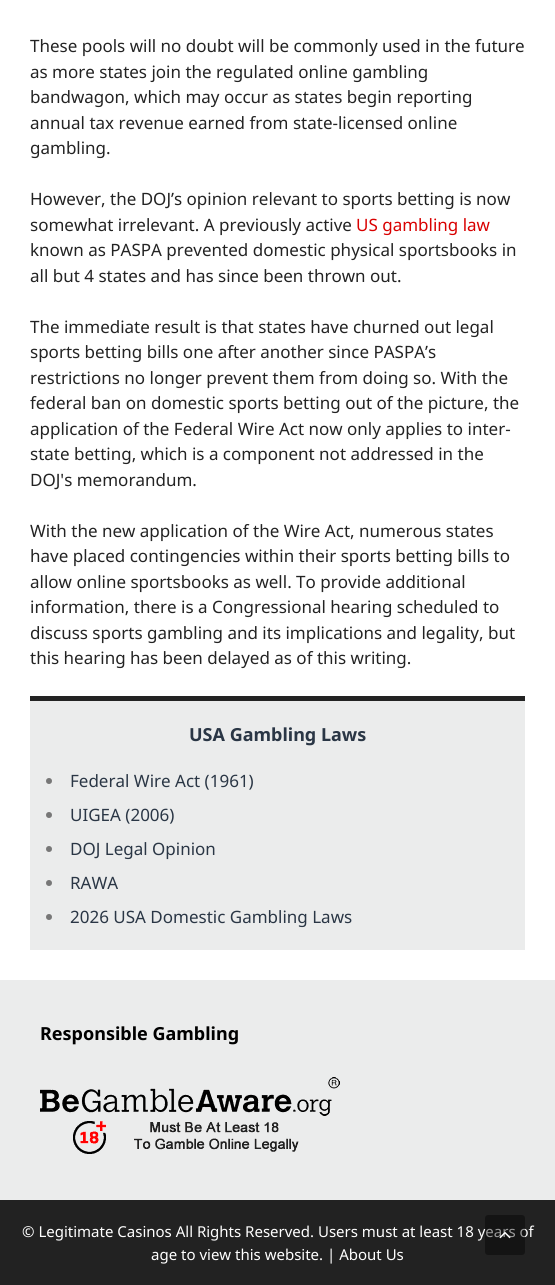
import math
import cairo


def round_path(ctx, x, y, w, h, r):
	ctx.new_sub_path()
	for i, (u, v) in enumerate([(x + w - r, y + h - r), (x + r, y + h - r), (x + r, y + r), (x + w - r, y + r)]):
		ctx.arc(u, v, r, i * math.pi / 2, (i + 1) * math.pi / 2)
	ctx.close_path()

def paste(ctx, path, x, y, w, h):
	ctx.save()
	ctx.set_source_surface(cairo.ImageSurface.create_from_png(path), x, y)
	ctx.rectangle(x, y, w, h)
	ctx.fill()
	ctx.restore()

def draw(ctx):
	ctx.set_source_rgb(0.918, 0.922, 0.925)
	ctx.paint()
	ctx.set_source_rgb(1, 1, 1)
	ctx.rectangle(0, 0, 555, 980)
	ctx.fill()
	ctx.select_font_face('Noto Sans')
	ctx.set_font_size(17)
	ctx.set_source_rgb(0.137, 0.137, 0.137)
	for x, y, s in [
		(30, 52, 'These pools will no doubt will be commonly used in the future'),
		(30, 78, 'as more states join the regulated online gambling'),
		(30, 103, 'bandwagon, which may occur as states begin reporting'),
		(30, 129, 'annual tax revenue earned from state-licensed online'),
		(30, 154, 'gambling.'),
		(30, 205, 'However, the DOJ’s opinion relevant to sports betting is now'),
		(30, 231, 'somewhat irrelevant. A previously active'),
	]:
		ctx.move_to(x, y)
		ctx.show_text(s)
	ctx.set_source_rgb(0.851, 0, 0)
	ctx.move_to(356, 231)
	ctx.show_text('US gambling law')
	ctx.set_source_rgb(0.137, 0.137, 0.137)
	for x, y, s in [
		(30, 256, 'known as PASPA prevented domestic physical sportsbooks in'),
		(30, 282, 'all but 4 states and has since been thrown out.'),
		(30, 333, 'The immediate result is that states have churned out legal'),
		(30, 358, 'sports betting bills one after another since PASPA’s'),
		(30, 384, 'restrictions no longer prevent them from doing so. With the'),
		(30, 409, 'federal ban on domestic sports betting out of the picture, the'),
		(30, 435, 'application of the Federal Wire Act now only applies to inter-'),
		(30, 460, 'state betting, which is a component not addressed in the'),
		(30, 486, 'DOJ\'s memorandum.'),
		(30, 537, 'With the new application of the Wire Act, numerous states'),
		(30, 562, 'have placed contingencies within their sports betting bills to'),
		(30, 588, 'allow online sportsbooks as well. To provide additional'),
		(30, 613, 'information, there is a Congressional hearing scheduled to'),
		(30, 639, 'discuss sports gambling and its implications and legality, but'),
		(30, 664, 'this hearing has been delayed as of this writing.'),
	]:
		ctx.move_to(x, y)
		ctx.show_text(s)
	ctx.set_source_rgb(0.918, 0.922, 0.925)
	ctx.rectangle(30, 701, 495, 249)
	ctx.fill()
	ctx.set_source_rgb(0.137, 0.137, 0.137)
	ctx.rectangle(30, 696, 495, 5)
	ctx.fill()
	ctx.select_font_face('Noto Sans', cairo.FONT_SLANT_NORMAL, cairo.FONT_WEIGHT_BOLD)
	ctx.set_font_size(18)
	ctx.set_source_rgb(0.165, 0.212, 0.271)
	ctx.move_to(189, 741)
	ctx.show_text('USA Gambling Laws')
	ctx.set_source_rgb(0.467, 0.467, 0.467)
	ctx.new_path()
	ctx.arc(49, 781, 3, 0, 2 * math.pi)
	ctx.fill()
	ctx.select_font_face('Noto Sans')
	ctx.set_font_size(17)
	ctx.set_source_rgb(0.165, 0.212, 0.271)
	ctx.move_to(70, 787)
	ctx.show_text('Federal Wire Act (1961)')
	ctx.set_source_rgb(0.467, 0.467, 0.467)
	ctx.new_path()
	ctx.arc(49, 815, 3, 0, 2 * math.pi)
	ctx.fill()
	ctx.set_source_rgb(0.165, 0.212, 0.271)
	ctx.move_to(70, 821)
	ctx.show_text('UIGEA (2006)')
	ctx.set_source_rgb(0.467, 0.467, 0.467)
	ctx.new_path()
	ctx.arc(49, 849, 3, 0, 2 * math.pi)
	ctx.fill()
	ctx.set_source_rgb(0.165, 0.212, 0.271)
	ctx.move_to(70, 855)
	ctx.show_text('DOJ Legal Opinion')
	ctx.set_source_rgb(0.467, 0.467, 0.467)
	ctx.new_path()
	ctx.arc(49, 883, 3, 0, 2 * math.pi)
	ctx.fill()
	ctx.set_source_rgb(0.165, 0.212, 0.271)
	ctx.move_to(70, 889)
	ctx.show_text('RAWA')
	ctx.set_source_rgb(0.467, 0.467, 0.467)
	ctx.new_path()
	ctx.arc(49, 917, 3, 0, 2 * math.pi)
	ctx.fill()
	ctx.set_source_rgb(0.165, 0.212, 0.271)
	ctx.move_to(70, 923)
	ctx.show_text('2026 USA Domestic Gambling Laws')
	ctx.select_font_face('Noto Sans', cairo.FONT_SLANT_NORMAL, cairo.FONT_WEIGHT_BOLD)
	ctx.set_font_size(18)
	ctx.set_source_rgb(0, 0, 0)
	ctx.move_to(40, 1040)
	ctx.show_text('Responsible Gambling')
	paste(ctx, 'media/1.png', 40, 1077, 300, 77)
	ctx.set_source_rgb(0.133, 0.133, 0.133)
	ctx.rectangle(0, 1200, 555, 85)
	ctx.fill()
	ctx.select_font_face('Noto Sans')
	ctx.set_font_size(15)
	ctx.set_source_rgb(1, 1, 1)
	ctx.move_to(22, 1237)
	ctx.show_text('© Legitimate Casinos All Rights Reserved. Users must at least 18 years of')
	ctx.move_to(151, 1260)
	ctx.show_text('age to view this website. | About Us')
	ctx.set_source_rgba(0, 0, 0, 0.4)
	round_path(ctx, 485, 1215, 40, 40, 3)
	ctx.fill()
	paste(ctx, 'media/2.png', 499, 1231, 12, 8)


surface = cairo.ImageSurface(cairo.FORMAT_RGB24, 555, 1285)
ctx = cairo.Context(surface)
options = cairo.FontOptions()
options.set_hint_metrics(cairo.HINT_METRICS_OFF)
options.set_hint_style(cairo.HINT_STYLE_NONE)
ctx.set_font_options(options)
ctx.set_miter_limit(4)
draw(ctx)
surface.write_to_png('image.png')
